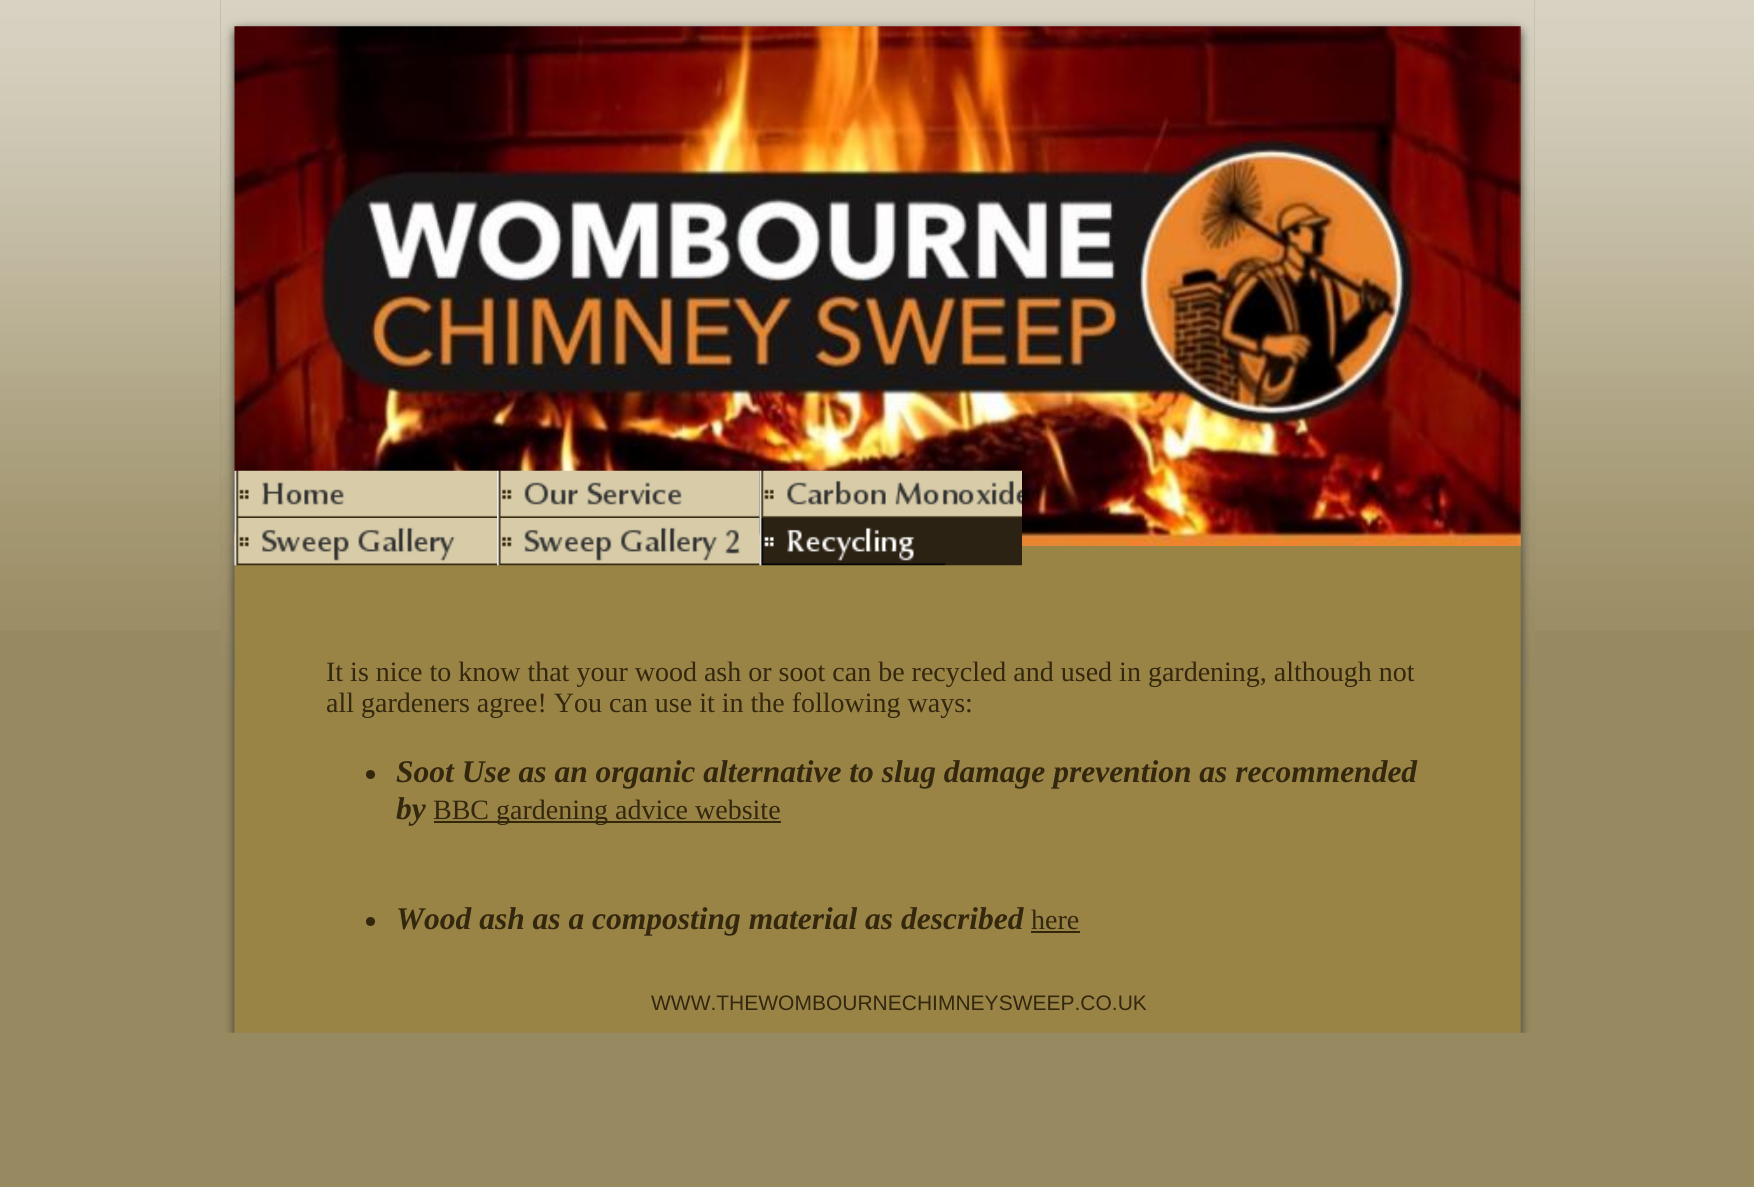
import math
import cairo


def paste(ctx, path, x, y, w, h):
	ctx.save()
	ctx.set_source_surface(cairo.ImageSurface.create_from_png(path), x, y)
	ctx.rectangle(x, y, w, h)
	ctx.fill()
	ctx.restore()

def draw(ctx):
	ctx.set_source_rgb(0.596, 0.541, 0.376)
	ctx.paint()
	paste(ctx, 'media/1.png', 0, 0, 1754, 630)
	paste(ctx, 'media/2.png', 220, 0, 1315, 1033)
	paste(ctx, 'media/3.png', 220, 0, 1315, 684)
	paste(ctx, 'media/4.png', 234, 26, 1287, 520)
	paste(ctx, 'media/5.png', 234, 470, 263, 48)
	paste(ctx, 'media/6.png', 497, 470, 263, 48)
	paste(ctx, 'media/7.png', 759, 470, 263, 48)
	paste(ctx, 'media/8.png', 234, 518, 263, 48)
	paste(ctx, 'media/9.png', 497, 518, 263, 48)
	paste(ctx, 'media/10.png', 759, 518, 263, 48)
	ctx.select_font_face('Liberation Serif')
	ctx.set_font_size(28)
	ctx.set_source_rgb(0.2, 0.153, 0.055)
	ctx.move_to(326, 681)
	ctx.show_text('It is nice to know that your wood ash or soot can be recycled and used in gardening, although not')
	ctx.move_to(326, 712)
	ctx.show_text('all gardeners agree! You can use it in the following ways:')
	ctx.new_path()
	ctx.arc(370.5, 774.5, 4.5, 0, 2 * math.pi)
	ctx.fill()
	ctx.select_font_face('Liberation Serif', cairo.FONT_SLANT_ITALIC, cairo.FONT_WEIGHT_BOLD)
	ctx.set_font_size(31.5)
	ctx.move_to(396, 782)
	ctx.show_text('Soot Use as an organic alternative to slug damage prevention as recommended')
	ctx.move_to(396, 819)
	ctx.show_text('by')
	ctx.set_source_rgb(0.2, 0.153, 0.051)
	ctx.rectangle(434, 821, 347, 2)
	ctx.fill()
	ctx.select_font_face('Liberation Serif')
	ctx.set_font_size(28)
	ctx.set_source_rgb(0.2, 0.153, 0.055)
	ctx.move_to(433, 819)
	ctx.show_text('BBC gardening advice website')
	ctx.new_path()
	ctx.arc(370.5, 921.5, 4.5, 0, 2 * math.pi)
	ctx.fill()
	ctx.select_font_face('Liberation Serif', cairo.FONT_SLANT_ITALIC, cairo.FONT_WEIGHT_BOLD)
	ctx.set_font_size(31.5)
	ctx.move_to(396, 929)
	ctx.show_text('Wood ash as a composting material as described')
	ctx.select_font_face('Liberation Serif')
	ctx.set_font_size(28)
	ctx.move_to(1031, 929)
	ctx.show_text('here')
	ctx.set_source_rgb(0.2, 0.153, 0.051)
	ctx.rectangle(1031, 931, 49, 2)
	ctx.fill()
	paste(ctx, 'media/11.png', 230, 1032, 1296, 1)
	ctx.select_font_face('Liberation Sans')
	ctx.set_font_size(21)
	ctx.set_source_rgb(0.2, 0.153, 0.055)
	ctx.move_to(651, 1010)
	ctx.show_text('WWW.THEWOMBOURNECHIMNEYSWEEP.CO.UK')


surface = cairo.ImageSurface(cairo.FORMAT_RGB24, 1754, 1187)
ctx = cairo.Context(surface)
options = cairo.FontOptions()
options.set_hint_metrics(cairo.HINT_METRICS_OFF)
options.set_hint_style(cairo.HINT_STYLE_NONE)
ctx.set_font_options(options)
ctx.set_miter_limit(4)
draw(ctx)
surface.write_to_png('image.png')
